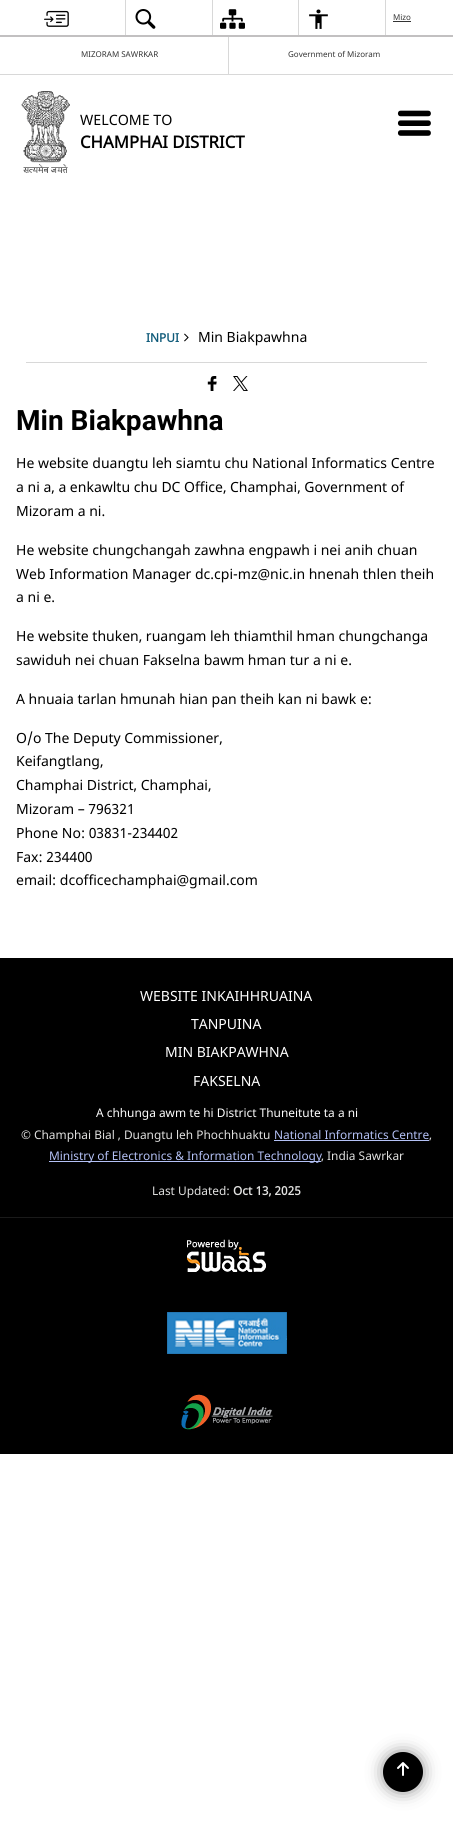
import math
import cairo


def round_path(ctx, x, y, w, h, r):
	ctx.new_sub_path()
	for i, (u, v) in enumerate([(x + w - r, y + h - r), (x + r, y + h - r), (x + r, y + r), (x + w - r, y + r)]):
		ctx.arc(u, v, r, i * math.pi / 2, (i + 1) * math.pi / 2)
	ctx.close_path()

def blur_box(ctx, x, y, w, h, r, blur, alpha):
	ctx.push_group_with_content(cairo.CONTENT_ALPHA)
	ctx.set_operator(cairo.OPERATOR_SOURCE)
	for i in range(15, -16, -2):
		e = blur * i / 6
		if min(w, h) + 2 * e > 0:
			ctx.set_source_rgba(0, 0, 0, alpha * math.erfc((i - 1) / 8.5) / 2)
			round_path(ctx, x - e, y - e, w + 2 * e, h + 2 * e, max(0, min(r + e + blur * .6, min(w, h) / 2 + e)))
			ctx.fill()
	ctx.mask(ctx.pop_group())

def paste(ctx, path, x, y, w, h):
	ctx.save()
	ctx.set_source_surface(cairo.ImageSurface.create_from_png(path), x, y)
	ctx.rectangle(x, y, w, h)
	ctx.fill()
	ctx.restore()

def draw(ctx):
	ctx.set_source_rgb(1, 1, 1)
	ctx.paint()
	ctx.set_source_rgb(0.847, 0.847, 0.847)
	ctx.rectangle(0, 74, 453, 1)
	ctx.fill()
	paste(ctx, 'media/1.png', 44, 10, 25, 17)
	ctx.rectangle(125, 0, 1, 37)
	ctx.fill()
	paste(ctx, 'media/2.png', 135, 9, 21, 20)
	ctx.rectangle(212, 0, 1, 37)
	ctx.fill()
	paste(ctx, 'media/3.png', 220, 9, 25, 20)
	ctx.rectangle(298, 0, 1, 37)
	ctx.fill()
	paste(ctx, 'media/4.png', 309, 9, 19, 20)
	ctx.rectangle(385, 0, 1, 37)
	ctx.fill()
	ctx.select_font_face('Noto Sans')
	ctx.set_font_size(8)
	ctx.set_source_rgb(0.2, 0.2, 0.2)
	ctx.move_to(393, 20)
	ctx.show_text('Mizo')
	ctx.rectangle(393, 21, 18, 1)
	ctx.fill()
	ctx.move_to(81, 57)
	ctx.show_text('MIZORAM SAWRKAR')
	ctx.set_source_rgb(0.847, 0.847, 0.847)
	ctx.rectangle(228, 37, 1, 37)
	ctx.fill()
	ctx.set_source_rgb(0.2, 0.2, 0.2)
	ctx.move_to(288, 57)
	ctx.show_text('Government of Mizoram')
	ctx.set_source_rgb(0.761, 0.753, 0.757)
	ctx.rectangle(0, 35, 453, 2)
	ctx.fill()
	paste(ctx, 'media/5.png', 21, 91, 49, 82)
	ctx.set_font_size(14.25)
	ctx.set_source_rgb(0, 0, 0)
	ctx.move_to(80, 125)
	ctx.show_text('WELCOME TO')
	ctx.select_font_face('Noto Sans', cairo.FONT_SLANT_NORMAL, cairo.FONT_WEIGHT_BOLD)
	ctx.set_font_size(16.75)
	ctx.move_to(80, 148)
	ctx.show_text('CHAMPHAI DISTRICT')
	paste(ctx, 'media/6.png', 397, 110, 34, 26)
	ctx.set_source_rgb(0.847, 0.847, 0.847)
	ctx.rectangle(26, 362, 401, 1)
	ctx.fill()
	ctx.set_font_size(11.9)
	ctx.set_source_rgb(0.063, 0.357, 0.478)
	ctx.move_to(146, 342)
	ctx.show_text('INPUI')
	paste(ctx, 'media/7.png', 184, 333, 5, 9)
	ctx.select_font_face('Noto Sans')
	ctx.set_font_size(14)
	ctx.set_source_rgb(0, 0, 0)
	ctx.move_to(198, 342)
	ctx.show_text('Min Biakpawhna')
	paste(ctx, 'media/8.png', 207, 376, 10, 15)
	paste(ctx, 'media/9.png', 233, 376, 15, 15)
	ctx.select_font_face('Roboto', cairo.FONT_SLANT_NORMAL, cairo.FONT_WEIGHT_BOLD)
	ctx.set_font_size(28)
	ctx.move_to(16, 430)
	ctx.show_text('Min Biakpawhna')
	ctx.select_font_face('Noto Sans')
	ctx.set_font_size(14)
	for x, y, s in [
		(16, 468, 'He website duangtu leh siamtu chu National Informatics Centre'),
		(16, 492, 'a ni a, a enkawltu chu DC Office, Champhai, Government of'),
		(16, 516, 'Mizoram a ni.'),
		(16, 555, 'He website chungchangah zawhna engpawh i nei anih chuan'),
		(16, 579, 'Web Information Manager dc.cpi-mz@nic.in hnenah thlen theih'),
		(16, 602, 'a ni e.'),
		(16, 641, 'He website thuken, ruangam leh thiamthil hman chungchanga'),
		(16, 665, 'sawiduh nei chuan Fakselna bawm hman tur a ni e.'),
		(16, 704, 'A hnuaia tarlan hmunah hian pan theih kan ni bawk e:'),
		(16, 743, 'O/o The Deputy Commissioner,'),
		(16, 766, 'Keifangtlang,'),
		(16, 790, 'Champhai District, Champhai,'),
		(16, 814, 'Mizoram – 796321'),
		(16, 838, 'Phone No: 03831-234402'),
		(16, 862, 'Fax: 234400'),
		(16, 885, 'email: dcofficechamphai@gmail.com'),
	]:
		ctx.move_to(x, y)
		ctx.show_text(s)
	ctx.rectangle(0, 958, 453, 496)
	ctx.fill()
	ctx.set_source_rgb(1, 1, 1)
	for x, y, s in [
		(140, 1001, 'WEBSITE INKAIHHRUAINA'),
		(191, 1029, 'TANPUINA'),
		(165, 1057, 'MIN BIAKPAWHNA'),
		(193, 1086, 'FAKSELNA'),
	]:
		ctx.move_to(x, y)
		ctx.show_text(s)
	ctx.set_font_size(11.9)
	ctx.move_to(96, 1117)
	ctx.show_text('A chhunga awm te hi District Thuneitute ta a ni')
	ctx.set_source_rgb(0.886, 0.886, 0.882)
	ctx.move_to(21, 1139)
	ctx.show_text('© Champhai Bial , Duangtu leh Phochhuaktu')
	ctx.set_source_rgb(0.706, 0.757, 0.961)
	ctx.move_to(274, 1139)
	ctx.show_text('National Informatics Centre')
	ctx.rectangle(274, 1140, 155, 1)
	ctx.fill()
	ctx.set_source_rgb(0.886, 0.886, 0.882)
	ctx.move_to(429, 1139)
	ctx.show_text(',')
	ctx.set_source_rgb(0.706, 0.757, 0.961)
	ctx.rectangle(49, 1161, 272, 1)
	ctx.fill()
	ctx.move_to(49, 1160)
	ctx.show_text('Ministry of Electronics & Information Technology')
	ctx.set_source_rgb(0.886, 0.886, 0.882)
	ctx.move_to(321, 1160)
	ctx.show_text(', India Sawrkar')
	ctx.move_to(152, 1195)
	ctx.show_text('Last Updated:')
	ctx.select_font_face('Noto Sans', cairo.FONT_SLANT_NORMAL, cairo.FONT_WEIGHT_BOLD)
	ctx.move_to(233, 1195)
	ctx.show_text('Oct 13, 2025')
	ctx.set_source_rgb(0.102, 0.102, 0.102)
	ctx.rectangle(0, 1217, 453, 1)
	ctx.fill()
	paste(ctx, 'media/10.png', 187, 1239, 79, 33)
	paste(ctx, 'media/11.png', 167, 1312, 120, 42)
	paste(ctx, 'media/12.png', 181, 1394, 92, 36)
	ctx.set_source_rgb(0.235, 0.235, 0.235)
	blur_box(ctx, 388, 1757, 30, 30, 15, 9.5, 1)
	ctx.set_source_rgb(0, 0, 0)
	ctx.arc(403, 1772, 20, 0, 2 * math.pi)
	ctx.fill()
	paste(ctx, 'media/13.png', 397, 1762, 12, 14)


surface = cairo.ImageSurface(cairo.FORMAT_RGB24, 453, 1822)
ctx = cairo.Context(surface)
options = cairo.FontOptions()
options.set_hint_metrics(cairo.HINT_METRICS_OFF)
options.set_hint_style(cairo.HINT_STYLE_NONE)
ctx.set_font_options(options)
ctx.set_miter_limit(4)
draw(ctx)
surface.write_to_png('image.png')
